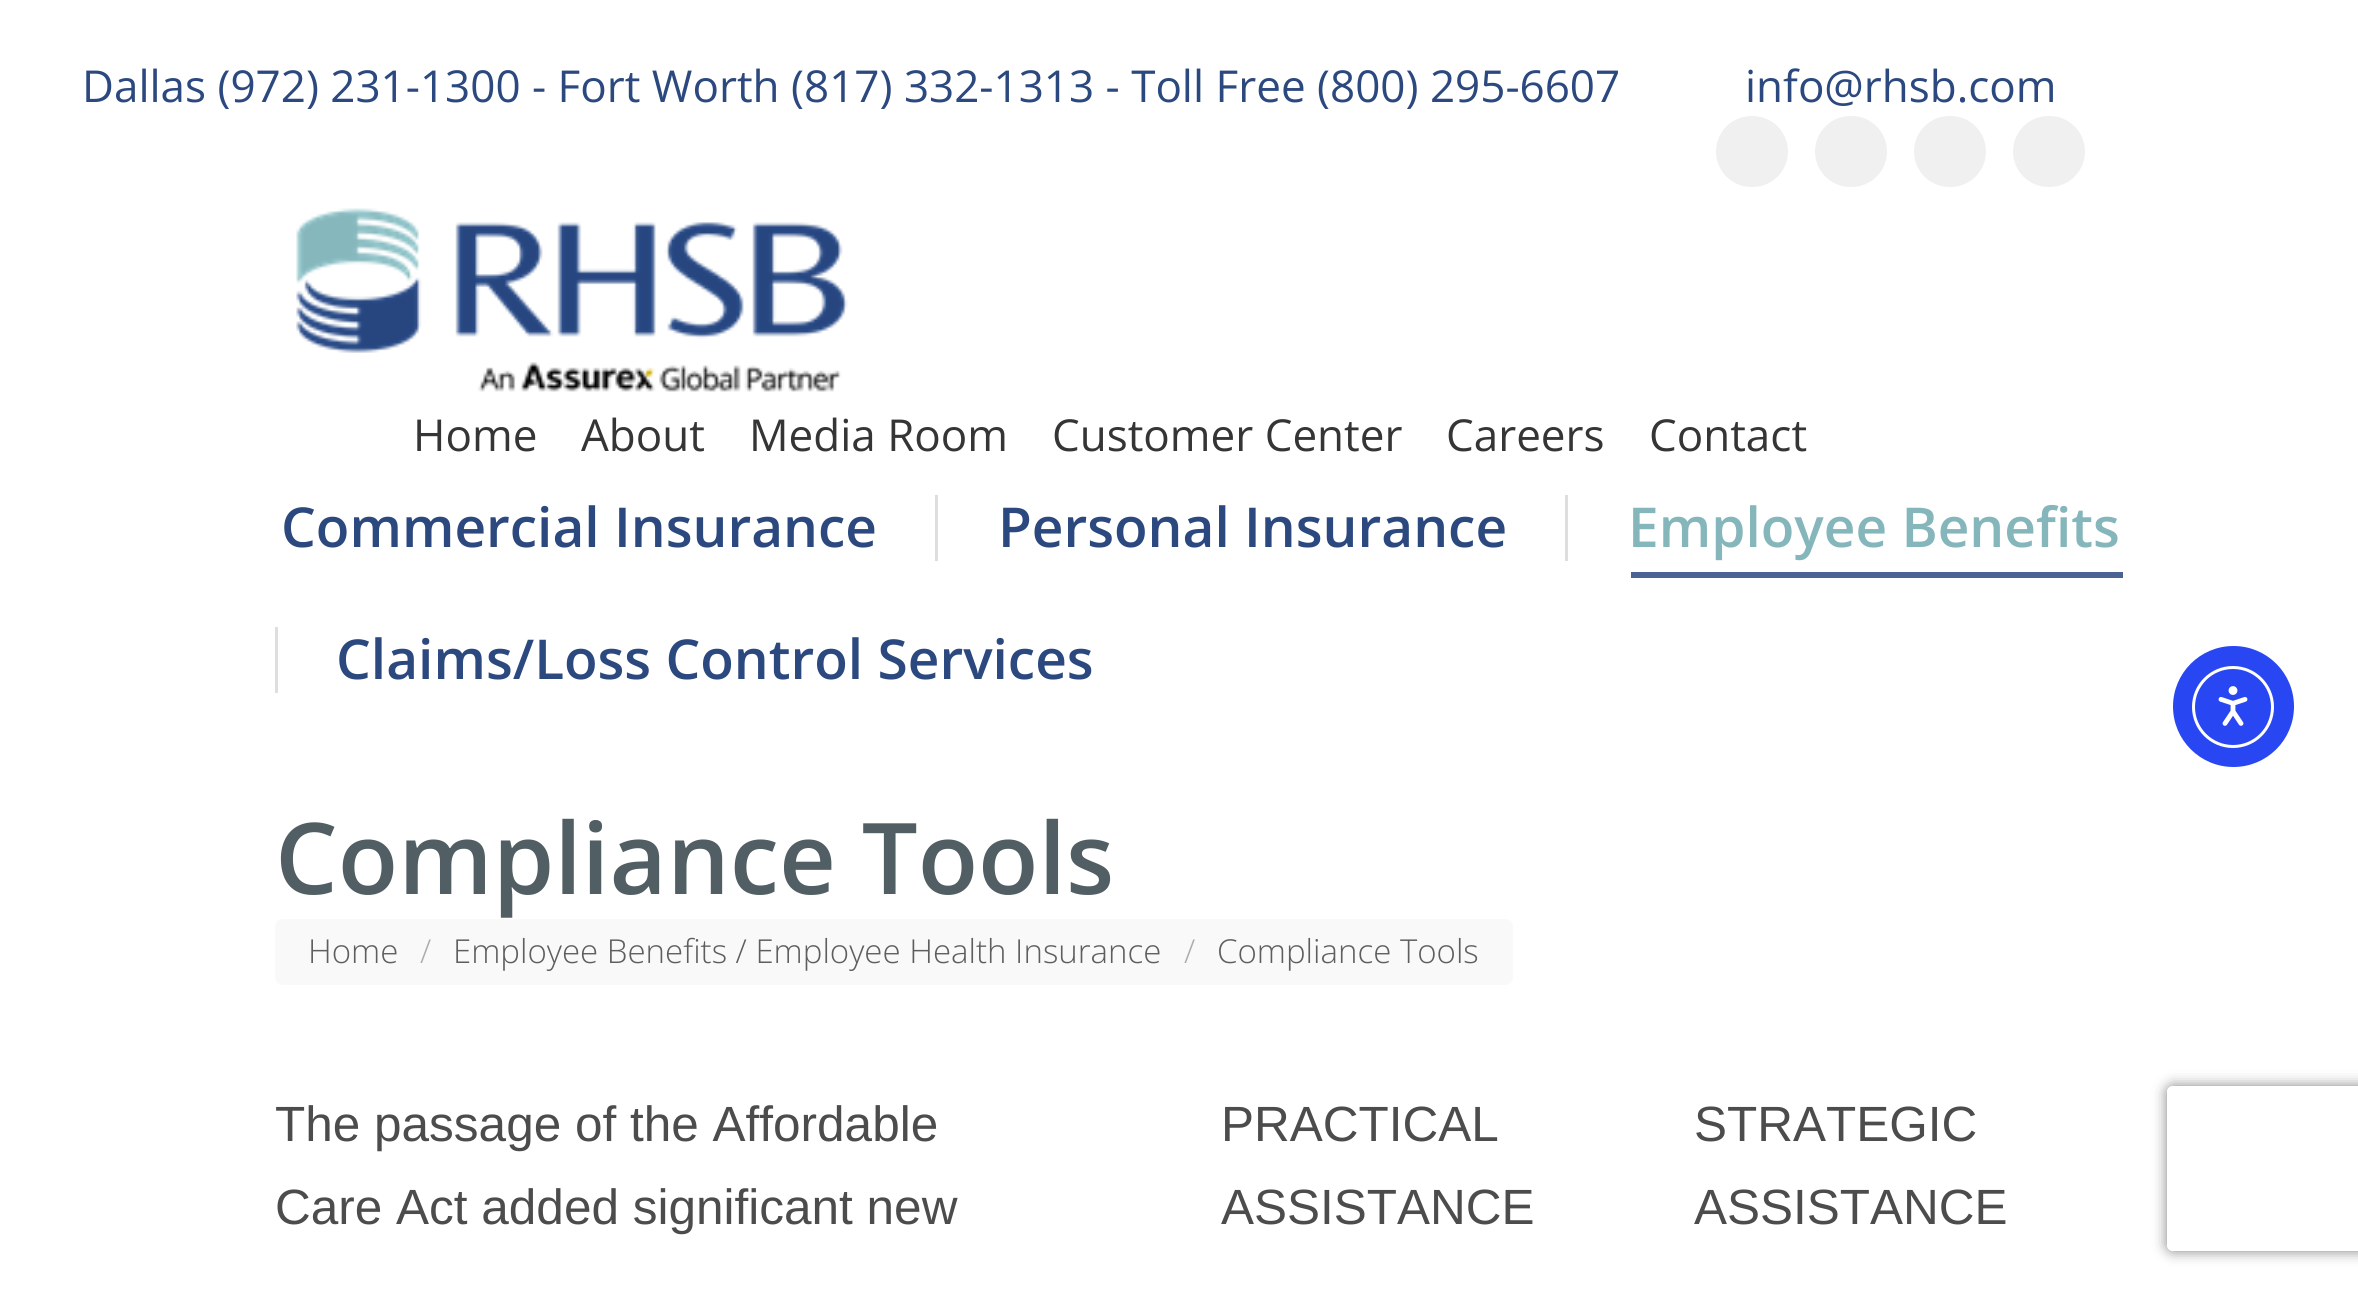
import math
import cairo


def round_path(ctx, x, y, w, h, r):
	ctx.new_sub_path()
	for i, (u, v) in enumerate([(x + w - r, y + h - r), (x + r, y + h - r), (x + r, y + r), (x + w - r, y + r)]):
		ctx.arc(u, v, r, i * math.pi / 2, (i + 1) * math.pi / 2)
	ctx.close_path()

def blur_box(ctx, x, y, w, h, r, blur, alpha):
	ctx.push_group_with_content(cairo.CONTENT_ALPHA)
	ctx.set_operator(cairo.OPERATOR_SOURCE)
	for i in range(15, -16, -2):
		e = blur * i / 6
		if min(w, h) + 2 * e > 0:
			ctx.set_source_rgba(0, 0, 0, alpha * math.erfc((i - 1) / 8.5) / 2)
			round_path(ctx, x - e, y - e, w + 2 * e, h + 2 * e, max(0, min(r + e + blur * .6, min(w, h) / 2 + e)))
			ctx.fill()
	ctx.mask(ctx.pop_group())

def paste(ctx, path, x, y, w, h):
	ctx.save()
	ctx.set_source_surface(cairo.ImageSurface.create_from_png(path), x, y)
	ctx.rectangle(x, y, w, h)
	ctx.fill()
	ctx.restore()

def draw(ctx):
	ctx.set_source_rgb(1, 1, 1)
	ctx.paint()
	ctx.select_font_face('Open Sans')
	ctx.set_font_size(44)
	ctx.set_source_rgb(0.169, 0.282, 0.498)
	ctx.move_to(82, 102)
	ctx.show_text('Dallas (972) 231-1300 - Fort Worth (817) 332-1313 - Toll Free (800) 295-6607')
	ctx.move_to(1745, 102)
	ctx.show_text('info@rhsb.com')
	ctx.set_source_rgb(0.941, 0.941, 0.941)
	round_path(ctx, 1716, 116, 72, 71, 35.5)
	ctx.fill()
	round_path(ctx, 1815, 116, 72, 71, 35.5)
	ctx.fill()
	round_path(ctx, 1914, 116, 72, 71, 35.5)
	ctx.fill()
	round_path(ctx, 2013, 116, 72, 71, 35.5)
	ctx.fill()
	paste(ctx, 'media/1.png', 296, 208, 552, 184)
	ctx.set_source_rgb(0.208, 0.208, 0.208)
	for x, y, s in [
		(413, 451, 'Home'),
		(581, 451, 'About'),
		(749, 451, 'Media Room'),
		(1052, 451, 'Customer Center'),
		(1446, 451, 'Careers'),
		(1649, 451, 'Contact'),
	]:
		ctx.move_to(x, y)
		ctx.show_text(s)
	ctx.select_font_face('Open Sans SemiBold')
	ctx.set_font_size(55)
	ctx.set_source_rgb(0.169, 0.282, 0.498)
	ctx.move_to(281, 547)
	ctx.show_text('Commercial Insurance')
	ctx.set_source_rgb(0.871, 0.871, 0.871)
	ctx.rectangle(935, 495, 3, 66)
	ctx.fill()
	ctx.set_source_rgb(0.169, 0.282, 0.498)
	ctx.move_to(998, 547)
	ctx.show_text('Personal Insurance')
	ctx.set_source_rgb(0.871, 0.871, 0.871)
	ctx.rectangle(1565, 495, 3, 66)
	ctx.fill()
	ctx.set_source_rgb(0.522, 0.714, 0.733)
	ctx.move_to(1628, 547)
	ctx.show_text('Employee Benefits')
	ctx.set_source_rgb(0.294, 0.388, 0.573)
	ctx.rectangle(1631, 572, 492, 6)
	ctx.fill()
	ctx.set_source_rgb(0.871, 0.871, 0.871)
	ctx.rectangle(275, 627, 3, 66)
	ctx.fill()
	ctx.set_source_rgb(0.169, 0.282, 0.498)
	ctx.move_to(336, 679)
	ctx.show_text('Claims/Loss Control Services')
	ctx.set_font_size(99)
	ctx.set_source_rgb(0.318, 0.369, 0.388)
	ctx.move_to(275, 894)
	ctx.show_text('Compliance Tools')
	ctx.set_source_rgb(0.976, 0.976, 0.976)
	round_path(ctx, 275, 919, 1238, 66, 8)
	ctx.fill()
	ctx.select_font_face('Open Sans Light')
	ctx.set_font_size(33)
	ctx.set_source_rgb(0.369, 0.369, 0.369)
	ctx.move_to(308, 963)
	ctx.show_text('Home')
	ctx.set_source_rgb(0.675, 0.675, 0.675)
	ctx.move_to(420, 963)
	ctx.show_text('/')
	ctx.set_source_rgb(0.369, 0.369, 0.369)
	ctx.move_to(453, 963)
	ctx.show_text('Employee Benefits / Employee Health Insurance')
	ctx.set_source_rgb(0.675, 0.675, 0.675)
	ctx.move_to(1184, 963)
	ctx.show_text('/')
	ctx.set_source_rgb(0.369, 0.369, 0.369)
	ctx.move_to(1217, 963)
	ctx.show_text('Compliance Tools')
	ctx.select_font_face('Liberation Sans')
	ctx.set_font_size(49.5)
	ctx.set_source_rgb(0.298, 0.298, 0.298)
	for x, y, s in [
		(275, 1141, 'The passage of the Affordable'),
		(275, 1224, 'Care Act added significant new'),
		(1221, 1141, 'PRACTICAL'),
		(1221, 1224, 'ASSISTANCE'),
		(1694, 1141, 'STRATEGIC'),
		(1694, 1224, 'ASSISTANCE'),
	]:
		ctx.move_to(x, y)
		ctx.show_text(s)
	ctx.set_source_rgb(0.157, 0.278, 0.953)
	ctx.new_path()
	ctx.arc(2233.5, 706.5, 60.5, 0, 2 * math.pi)
	ctx.fill()
	ctx.arc(2233, 707, 39.5, 0, 2 * math.pi)
	ctx.set_source_rgb(1, 1, 1)
	ctx.set_line_width(3)
	ctx.stroke()
	paste(ctx, 'media/2.png', 2218, 686, 30, 40)
	ctx.save()
	ctx.set_fill_rule(cairo.FILL_RULE_EVEN_ODD)
	ctx.new_path()
	ctx.move_to(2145, 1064)
	ctx.line_to(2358, 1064)
	ctx.line_to(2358, 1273)
	ctx.line_to(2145, 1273)
	ctx.close_path()
	ctx.move_to(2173, 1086)
	ctx.line_to(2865, 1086)
	ctx.curve_to(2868.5, 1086, 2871, 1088.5, 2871, 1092)
	ctx.line_to(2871, 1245)
	ctx.curve_to(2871, 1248.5, 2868.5, 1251, 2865, 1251)
	ctx.line_to(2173, 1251)
	ctx.curve_to(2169.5, 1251, 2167, 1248.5, 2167, 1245)
	ctx.line_to(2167, 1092)
	ctx.curve_to(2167, 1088.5, 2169.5, 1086, 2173, 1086)
	ctx.close_path()
	ctx.clip()
	ctx.set_source_rgb(0.502, 0.502, 0.502)
	blur_box(ctx, 2167, 1086, 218, 165, 6, 7, 1)
	ctx.restore()


surface = cairo.ImageSurface(cairo.FORMAT_RGB24, 2358, 1289)
ctx = cairo.Context(surface)
options = cairo.FontOptions()
options.set_hint_metrics(cairo.HINT_METRICS_OFF)
options.set_hint_style(cairo.HINT_STYLE_NONE)
ctx.set_font_options(options)
ctx.set_miter_limit(4)
draw(ctx)
surface.write_to_png('image.png')
